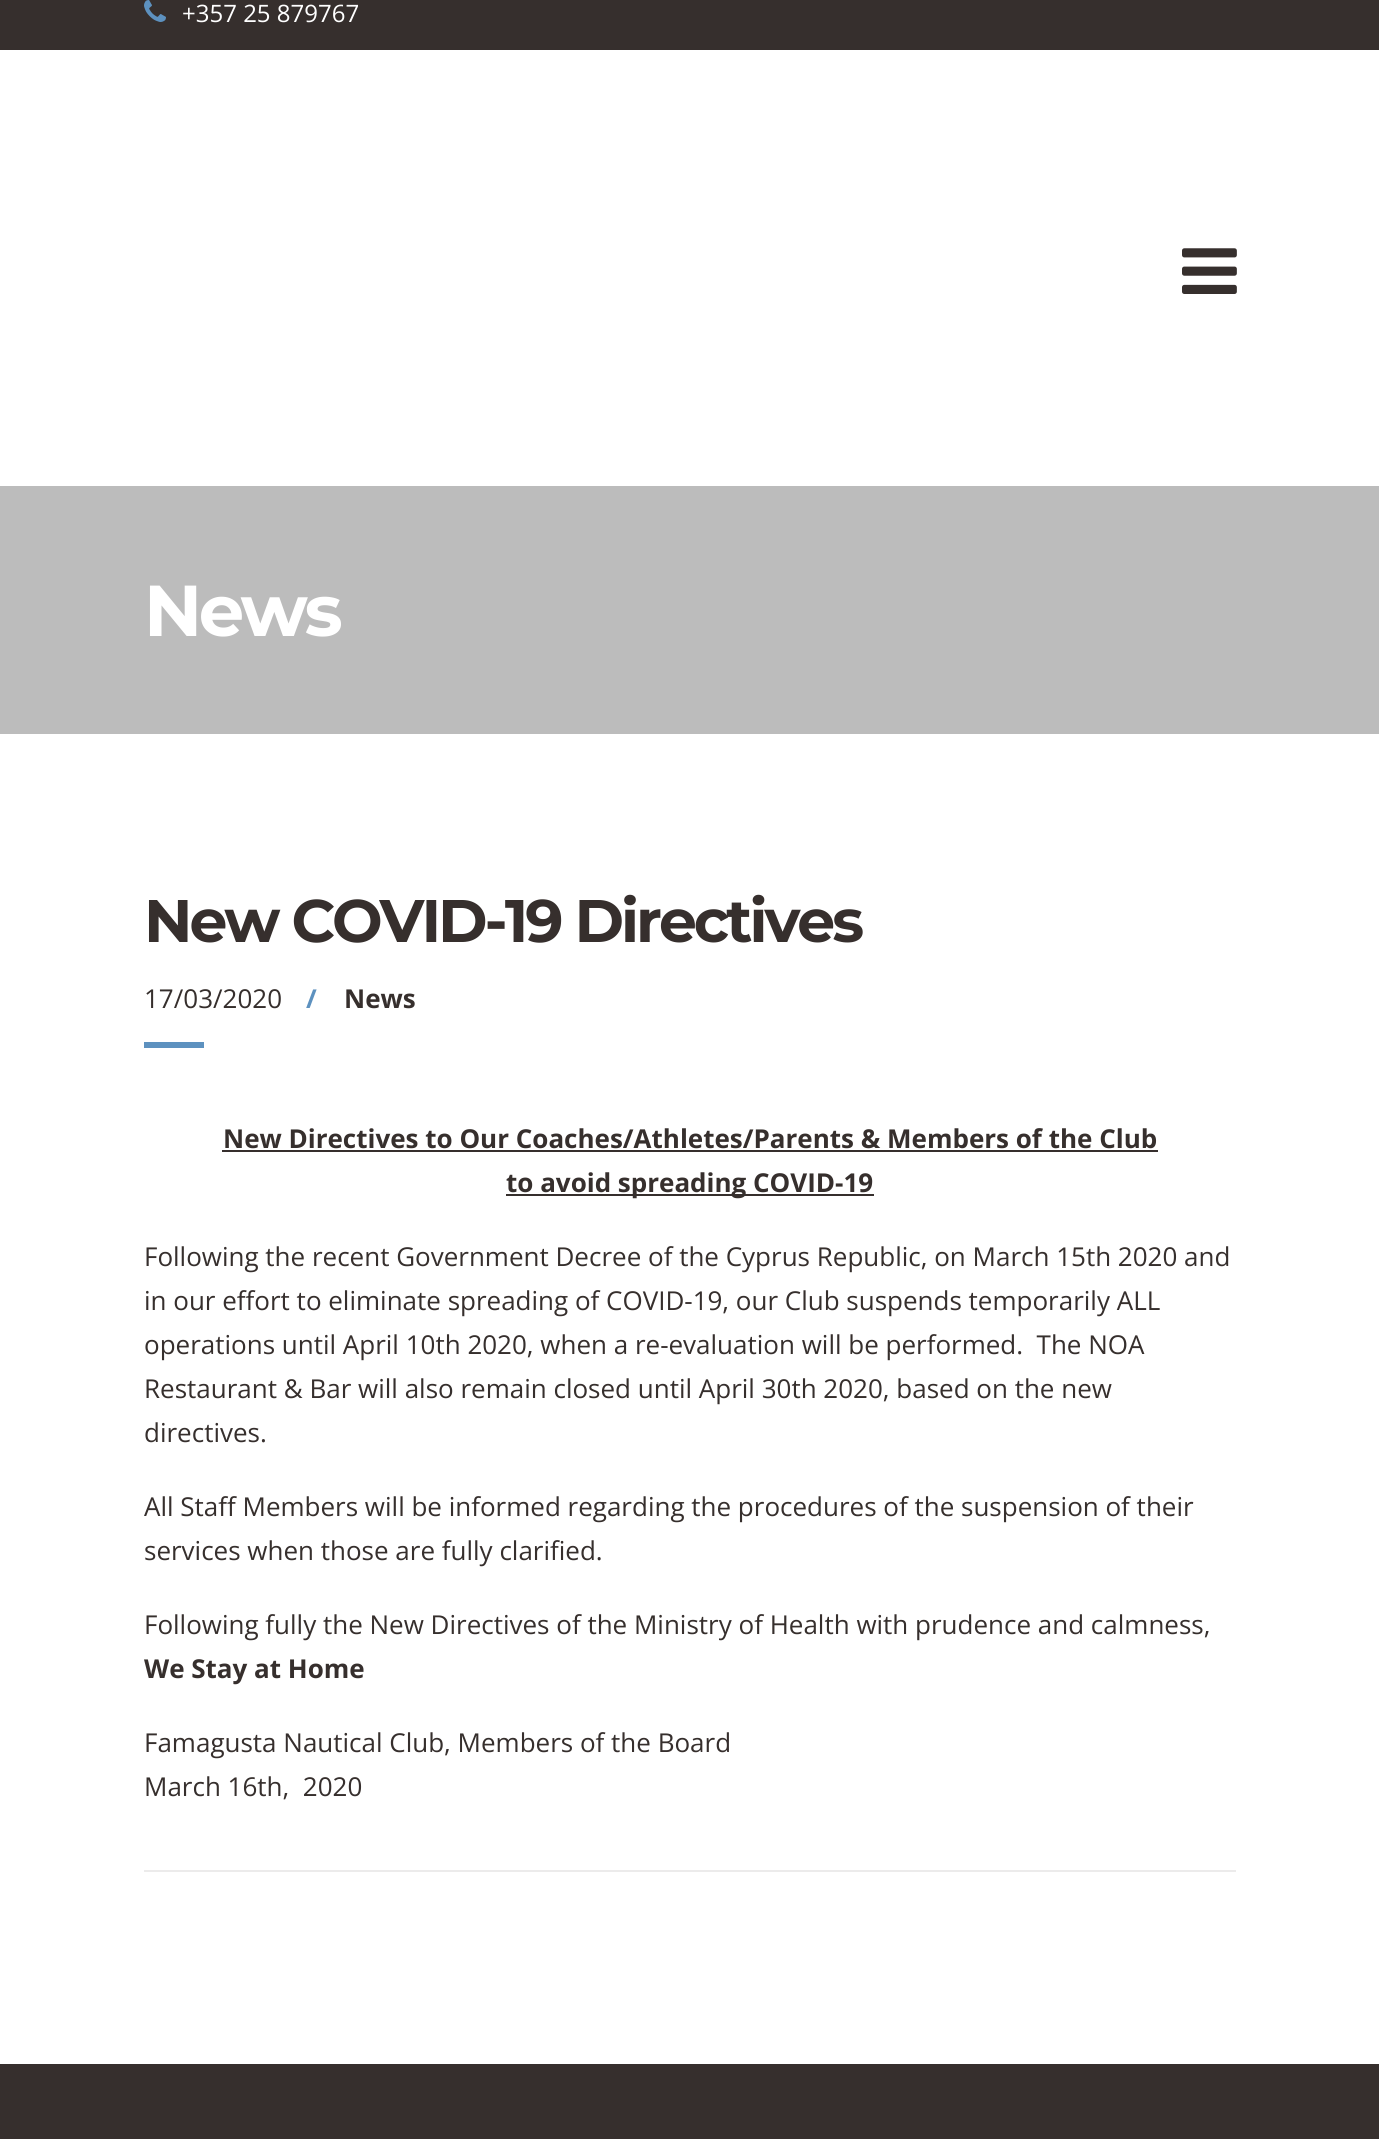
import math
import cairo


def write_spaced(ctx, x, y, s, letter, word):
	ctx.move_to(x, y)
	for ch in s:
		ctx.show_text(ch)
		ctx.rel_move_to(letter + word * (ch == ' '), 0)

def paste(ctx, path, x, y, w, h):
	ctx.save()
	ctx.set_source_surface(cairo.ImageSurface.create_from_png(path), x, y)
	ctx.rectangle(x, y, w, h)
	ctx.fill()
	ctx.restore()

def draw(ctx):
	ctx.set_source_rgb(1, 1, 1)
	ctx.paint()
	ctx.set_source_rgb(0.212, 0.184, 0.176)
	ctx.rectangle(0, 0, 1379, 50)
	ctx.fill()
	paste(ctx, 'media/1.png', 144, 0, 22, 22)
	ctx.select_font_face('Open Sans')
	ctx.set_font_size(24)
	ctx.set_source_rgb(1, 1, 1)
	ctx.move_to(182, 22)
	ctx.show_text('+357 25 879767')
	paste(ctx, 'media/2.png', 1182, 248, 55, 46)
	ctx.set_source_rgb(0.737, 0.737, 0.737)
	ctx.rectangle(0, 486, 1379, 248)
	ctx.fill()
	ctx.select_font_face('Montserrat Thin')
	ctx.set_font_size(72)
	ctx.set_source_rgb(1, 1, 1)
	write_spaced(ctx, 144, 636, 'News', -3.5, 0)
	ctx.set_font_size(60)
	ctx.set_source_rgb(0.212, 0.184, 0.176)
	write_spaced(ctx, 144, 942, 'New COVID-19 Directives', -3, 0)
	ctx.select_font_face('Open Sans')
	ctx.set_font_size(26)
	ctx.move_to(144, 1008)
	ctx.show_text('17/03/2020')
	ctx.select_font_face('Open Sans', cairo.FONT_SLANT_NORMAL, cairo.FONT_WEIGHT_BOLD)
	ctx.set_source_rgb(0.365, 0.569, 0.749)
	ctx.move_to(306, 1008)
	ctx.show_text('/')
	ctx.set_source_rgb(0.212, 0.184, 0.176)
	ctx.move_to(344, 1008)
	ctx.show_text('News')
	ctx.set_source_rgb(0.365, 0.569, 0.749)
	ctx.rectangle(144, 1042, 60, 6)
	ctx.fill()
	ctx.set_source_rgb(0.212, 0.184, 0.176)
	ctx.move_to(223, 1148)
	ctx.show_text('New Directives to Our Coaches/Athletes/Parents & Members of the Club')
	ctx.rectangle(222, 1150, 936, 2)
	ctx.fill()
	ctx.rectangle(506, 1194, 368, 2)
	ctx.fill()
	ctx.move_to(506, 1192)
	ctx.show_text('to avoid spreading COVID-19')
	ctx.select_font_face('Open Sans')
	for x, y, s in [
		(144, 1266, 'Following the recent Government Decree of the Cyprus Republic, on March 15th 2020 and'),
		(144, 1310, 'in our effort to eliminate spreading of COVID-19, our Club suspends temporarily ALL'),
		(144, 1354, 'operations until April 10th 2020, when a re-evaluation will be performed.  The NOA'),
		(144, 1398, 'Restaurant & Bar will also remain closed until April 30th 2020, based on the new'),
		(144, 1442, 'directives.'),
		(144, 1516, 'All Staff Members will be informed regarding the procedures of the suspension of their'),
		(144, 1560, 'services when those are fully clarified.'),
		(144, 1634, 'Following fully the New Directives of the Ministry of Health with prudence and calmness,'),
	]:
		ctx.move_to(x, y)
		ctx.show_text(s)
	ctx.select_font_face('Open Sans', cairo.FONT_SLANT_NORMAL, cairo.FONT_WEIGHT_BOLD)
	ctx.move_to(144, 1678)
	ctx.show_text('We Stay at Home')
	ctx.select_font_face('Open Sans')
	ctx.move_to(144, 1752)
	ctx.show_text('Famagusta Nautical Club, Members of the Board')
	ctx.move_to(144, 1796)
	ctx.show_text('March 16th,  2020')
	ctx.set_source_rgb(0.922, 0.918, 0.918)
	ctx.rectangle(144, 1870, 1092, 2)
	ctx.fill()
	ctx.set_source_rgb(0.212, 0.184, 0.176)
	ctx.rectangle(0, 2064, 1379, 75)
	ctx.fill()


surface = cairo.ImageSurface(cairo.FORMAT_RGB24, 1379, 2139)
ctx = cairo.Context(surface)
options = cairo.FontOptions()
options.set_hint_metrics(cairo.HINT_METRICS_OFF)
options.set_hint_style(cairo.HINT_STYLE_NONE)
ctx.set_font_options(options)
ctx.set_miter_limit(4)
draw(ctx)
surface.write_to_png('image.png')
